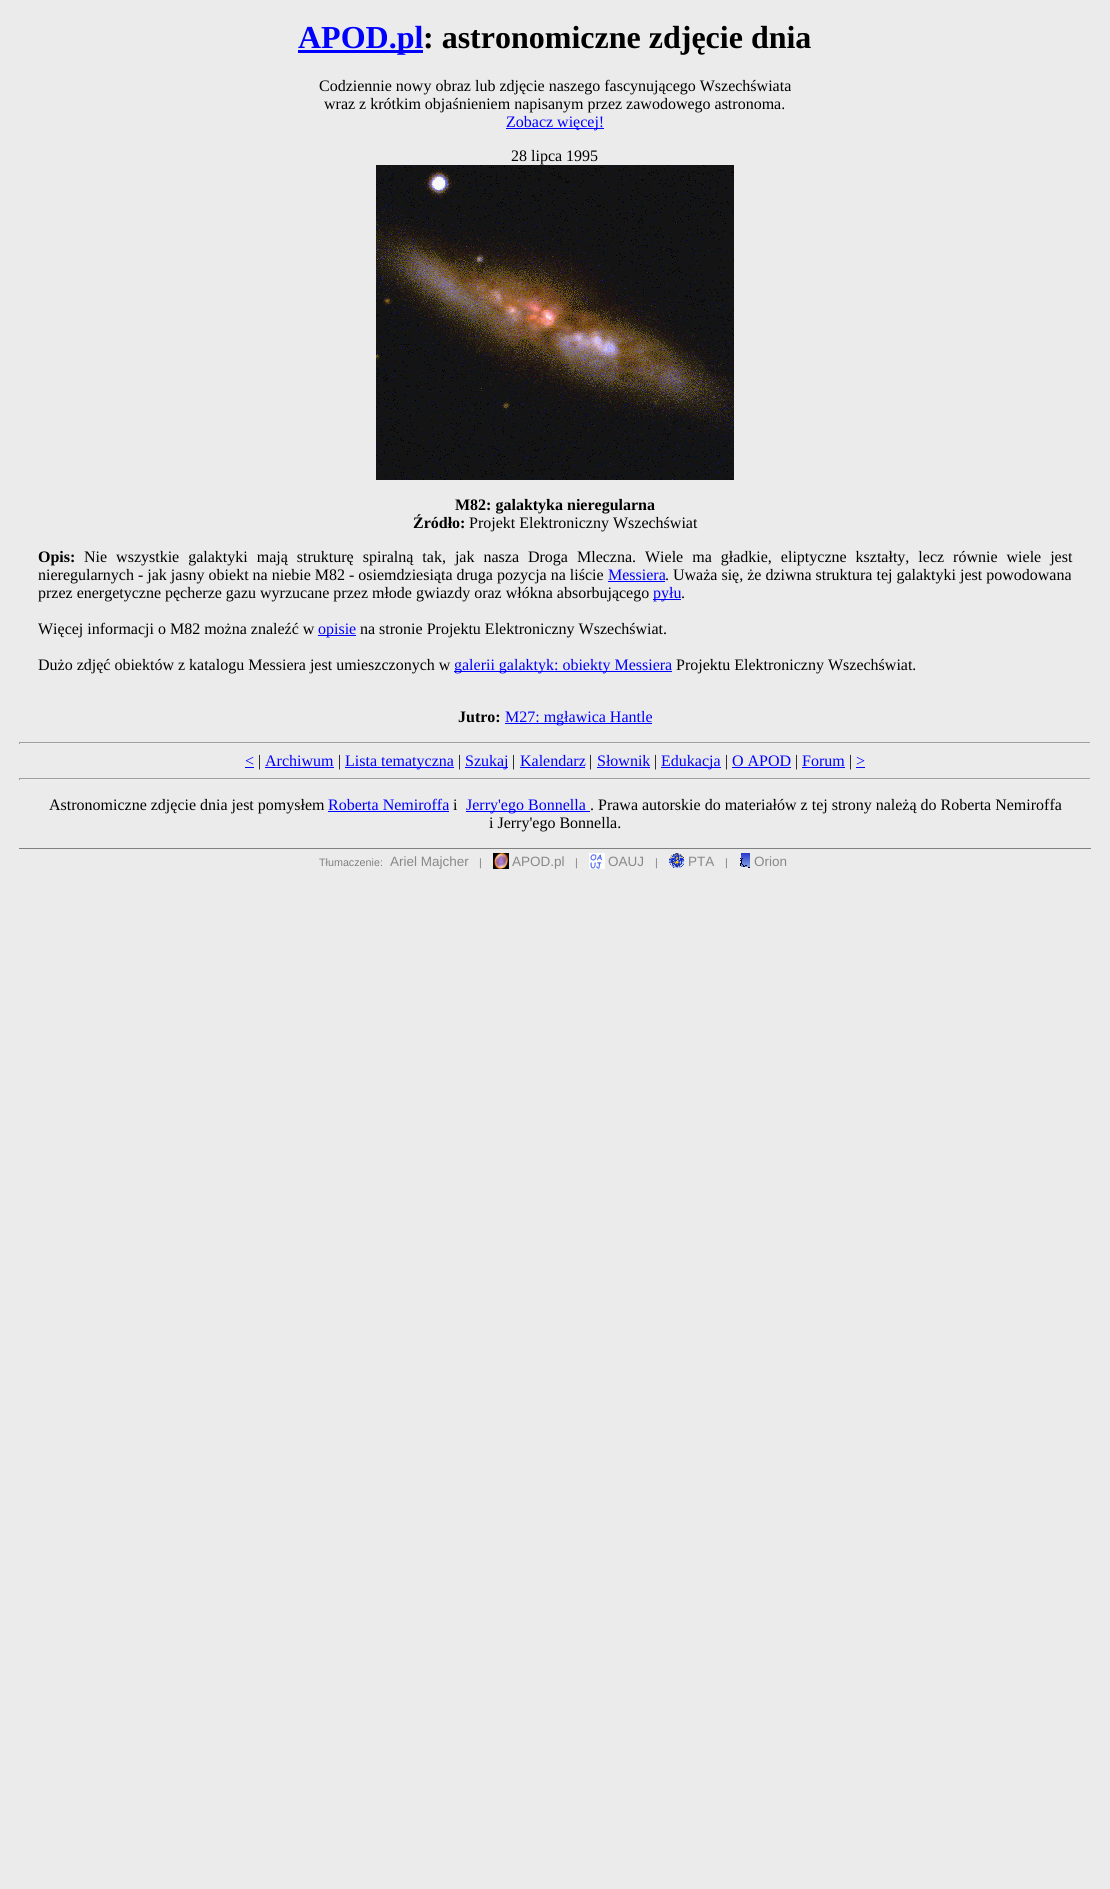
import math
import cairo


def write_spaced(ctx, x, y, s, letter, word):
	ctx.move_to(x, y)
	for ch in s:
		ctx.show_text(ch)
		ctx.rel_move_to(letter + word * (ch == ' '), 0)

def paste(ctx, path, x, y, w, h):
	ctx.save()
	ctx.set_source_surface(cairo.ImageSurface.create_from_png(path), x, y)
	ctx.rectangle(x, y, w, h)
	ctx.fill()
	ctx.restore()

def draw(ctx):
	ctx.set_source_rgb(0.918, 0.918, 0.918)
	ctx.paint()
	ctx.set_source_rgb(0, 0, 1)
	ctx.rectangle(298, 50, 125, 3)
	ctx.fill()
	ctx.select_font_face('Liberation Serif', cairo.FONT_SLANT_NORMAL, cairo.FONT_WEIGHT_BOLD)
	ctx.set_font_size(32)
	ctx.move_to(298, 48)
	ctx.show_text('APOD.pl')
	ctx.set_source_rgb(0, 0, 0)
	ctx.move_to(423, 48)
	ctx.show_text(': astronomiczne zdjęcie dnia')
	ctx.select_font_face('Liberation Serif')
	ctx.set_font_size(16)
	ctx.move_to(319, 91)
	ctx.show_text('Codziennie nowy obraz lub zdjęcie naszego fascynującego Wszechświata')
	ctx.move_to(324, 109)
	ctx.show_text('wraz z krótkim objaśnieniem napisanym przez zawodowego astronoma.')
	ctx.set_source_rgb(0, 0, 1)
	ctx.rectangle(506, 128, 98, 1)
	ctx.fill()
	ctx.move_to(506, 127)
	ctx.show_text('Zobacz więcej!')
	ctx.set_source_rgb(0, 0, 0)
	ctx.move_to(511, 161)
	ctx.show_text('28 lipca 1995')
	paste(ctx, 'media/1.png', 376, 165, 358, 315)
	ctx.select_font_face('Liberation Serif', cairo.FONT_SLANT_NORMAL, cairo.FONT_WEIGHT_BOLD)
	ctx.move_to(455, 510)
	ctx.show_text('M82: galaktyka nieregularna')
	ctx.move_to(413, 528)
	ctx.show_text('Źródło:')
	ctx.select_font_face('Liberation Serif')
	ctx.move_to(469, 528)
	ctx.show_text('Projekt Elektroniczny Wszechświat')
	ctx.select_font_face('Liberation Serif', cairo.FONT_SLANT_NORMAL, cairo.FONT_WEIGHT_BOLD)
	ctx.move_to(38, 562)
	ctx.show_text('Opis:')
	ctx.select_font_face('Liberation Serif')
	write_spaced(ctx, 84, 562, 'Nie wszystkie galaktyki mają strukturę spiralną tak, jak nasza Droga Mleczna.', 0, 5)
	write_spaced(ctx, 645, 562, 'Wiele ma gładkie, eliptyczne kształty, lecz równie wiele jest', 0, 5)
	ctx.move_to(38, 580)
	ctx.show_text('nieregularnych - jak jasny obiekt na niebie M82 - osiemdziesiąta druga pozycja na liście')
	ctx.set_source_rgb(0, 0, 1)
	ctx.move_to(608, 580)
	ctx.show_text('Messiera')
	ctx.rectangle(608, 581, 57, 1)
	ctx.fill()
	ctx.set_source_rgb(0, 0, 0)
	ctx.move_to(665, 580)
	ctx.show_text('. Uważa się, że dziwna struktura tej galaktyki jest powodowana')
	ctx.move_to(38, 598)
	ctx.show_text('przez energetyczne pęcherze gazu wyrzucane przez młode gwiazdy oraz włókna absorbującego')
	ctx.set_source_rgb(0, 0, 1)
	ctx.rectangle(653, 599, 28, 1)
	ctx.fill()
	ctx.move_to(653, 598)
	ctx.show_text('pyłu')
	ctx.set_source_rgb(0, 0, 0)
	ctx.move_to(681, 598)
	ctx.show_text('.')
	ctx.move_to(38, 634)
	ctx.show_text('Więcej informacji o M82 można znaleźć w')
	ctx.set_source_rgb(0, 0, 1)
	ctx.rectangle(318, 635, 38, 1)
	ctx.fill()
	ctx.move_to(318, 634)
	ctx.show_text('opisie')
	ctx.set_source_rgb(0, 0, 0)
	ctx.move_to(360, 634)
	ctx.show_text('na stronie Projektu Elektroniczny Wszechświat.')
	ctx.move_to(38, 670)
	ctx.show_text('Dużo zdjęć obiektów z katalogu Messiera jest umieszczonych w')
	ctx.set_source_rgb(0, 0, 1)
	ctx.rectangle(454, 671, 218, 1)
	ctx.fill()
	ctx.move_to(454, 670)
	ctx.show_text('galerii galaktyk: obiekty Messiera')
	ctx.set_source_rgb(0, 0, 0)
	ctx.move_to(676, 670)
	ctx.show_text('Projektu Elektroniczny Wszechświat.')
	ctx.select_font_face('Liberation Serif', cairo.FONT_SLANT_NORMAL, cairo.FONT_WEIGHT_BOLD)
	ctx.move_to(458, 722)
	ctx.show_text('Jutro:')
	ctx.set_source_rgb(0, 0, 1)
	ctx.rectangle(505, 723, 147, 1)
	ctx.fill()
	ctx.select_font_face('Liberation Serif')
	ctx.move_to(505, 722)
	ctx.show_text('M27: mgławica Hantle')
	ctx.set_source_rgb(0.624, 0.624, 0.624)
	ctx.rectangle(19, 742, 1072, 1)
	ctx.fill()
	ctx.set_source_rgb(0.933, 0.933, 0.933)
	ctx.rectangle(1090, 742, 1, 2)
	ctx.rectangle(19, 743, 1072, 1)
	ctx.fill()
	ctx.set_source_rgb(0.624, 0.624, 0.624)
	ctx.rectangle(19, 742, 1, 2)
	ctx.fill()
	ctx.set_source_rgb(0, 0, 1)
	ctx.move_to(245, 766)
	ctx.show_text('<')
	ctx.rectangle(245, 767, 9, 1)
	ctx.fill()
	ctx.set_source_rgb(0, 0, 0)
	ctx.move_to(258, 766)
	ctx.show_text('|')
	ctx.set_source_rgb(0, 0, 1)
	ctx.move_to(265, 766)
	ctx.show_text('Archiwum')
	ctx.rectangle(265, 767, 69, 1)
	ctx.fill()
	ctx.set_source_rgb(0, 0, 0)
	ctx.move_to(338, 766)
	ctx.show_text('|')
	ctx.set_source_rgb(0, 0, 1)
	ctx.rectangle(345, 767, 109, 1)
	ctx.fill()
	ctx.move_to(345, 766)
	ctx.show_text('Lista tematyczna')
	ctx.set_source_rgb(0, 0, 0)
	ctx.move_to(458, 766)
	ctx.show_text('|')
	ctx.set_source_rgb(0, 0, 1)
	ctx.rectangle(465, 767, 43, 1)
	ctx.fill()
	ctx.move_to(465, 766)
	ctx.show_text('Szukaj')
	ctx.set_source_rgb(0, 0, 0)
	ctx.move_to(512, 766)
	ctx.show_text('|')
	ctx.set_source_rgb(0, 0, 1)
	ctx.move_to(520, 766)
	ctx.show_text('Kalendarz')
	ctx.rectangle(520, 767, 65, 1)
	ctx.fill()
	ctx.set_source_rgb(0, 0, 0)
	ctx.move_to(589, 766)
	ctx.show_text('|')
	ctx.set_source_rgb(0, 0, 1)
	ctx.move_to(597, 766)
	ctx.show_text('Słownik')
	ctx.rectangle(597, 767, 53, 1)
	ctx.fill()
	ctx.set_source_rgb(0, 0, 0)
	ctx.move_to(654, 766)
	ctx.show_text('|')
	ctx.set_source_rgb(0, 0, 1)
	ctx.rectangle(661, 767, 60, 1)
	ctx.fill()
	ctx.move_to(661, 766)
	ctx.show_text('Edukacja')
	ctx.set_source_rgb(0, 0, 0)
	ctx.move_to(725, 766)
	ctx.show_text('|')
	ctx.set_source_rgb(0, 0, 1)
	ctx.move_to(732, 766)
	ctx.show_text('O APOD')
	ctx.rectangle(732, 767, 59, 1)
	ctx.fill()
	ctx.set_source_rgb(0, 0, 0)
	ctx.move_to(795, 766)
	ctx.show_text('|')
	ctx.set_source_rgb(0, 0, 1)
	ctx.move_to(802, 766)
	ctx.show_text('Forum')
	ctx.rectangle(802, 767, 43, 1)
	ctx.fill()
	ctx.set_source_rgb(0, 0, 0)
	ctx.move_to(849, 766)
	ctx.show_text('|')
	ctx.set_source_rgb(0, 0, 1)
	ctx.move_to(856, 766)
	ctx.show_text('>')
	ctx.rectangle(856, 767, 9, 1)
	ctx.fill()
	ctx.set_source_rgb(0.624, 0.624, 0.624)
	ctx.rectangle(19, 778, 1072, 1)
	ctx.fill()
	ctx.set_source_rgb(0.933, 0.933, 0.933)
	ctx.rectangle(1090, 778, 1, 2)
	ctx.rectangle(19, 779, 1072, 1)
	ctx.fill()
	ctx.set_source_rgb(0.624, 0.624, 0.624)
	ctx.rectangle(19, 778, 1, 2)
	ctx.fill()
	ctx.set_source_rgb(0, 0, 0)
	ctx.move_to(49, 810)
	ctx.show_text('Astronomiczne zdjęcie dnia jest pomysłem')
	ctx.set_source_rgb(0, 0, 1)
	ctx.move_to(328, 810)
	ctx.show_text('Roberta Nemiroffa')
	ctx.rectangle(328, 811, 121, 1)
	ctx.fill()
	ctx.set_source_rgb(0, 0, 0)
	ctx.move_to(453, 810)
	ctx.show_text('i')
	ctx.set_source_rgb(0, 0, 1)
	ctx.rectangle(466, 811, 124, 1)
	ctx.fill()
	ctx.move_to(466, 810)
	ctx.show_text('Jerry\'ego Bonnella')
	ctx.set_source_rgb(0, 0, 0)
	ctx.move_to(590, 810)
	ctx.show_text('. Prawa autorskie do materiałów z tej strony należą do Roberta Nemiroffa')
	ctx.move_to(489, 828)
	ctx.show_text('i Jerry\'ego Bonnella.')
	ctx.set_source_rgb(0.502, 0.502, 0.502)
	ctx.rectangle(19, 848, 1072, 1)
	ctx.fill()
	ctx.select_font_face('Liberation Sans')
	ctx.set_font_size(10.75)
	ctx.move_to(319, 866)
	ctx.show_text('Tłumaczenie:')
	ctx.set_font_size(13.5)
	ctx.set_source_rgb(0.533, 0.533, 0.533)
	ctx.move_to(390, 866)
	ctx.show_text('Ariel Majcher')
	ctx.set_font_size(10.75)
	ctx.set_source_rgb(0.502, 0.502, 0.502)
	ctx.move_to(479, 866)
	ctx.show_text('|')
	paste(ctx, 'media/2.png', 493, 853, 16, 16)
	ctx.set_font_size(13.5)
	ctx.set_source_rgb(0.533, 0.533, 0.533)
	ctx.move_to(512, 866)
	ctx.show_text('APOD.pl')
	ctx.set_font_size(10.75)
	ctx.set_source_rgb(0.502, 0.502, 0.502)
	ctx.move_to(575, 866)
	ctx.show_text('|')
	paste(ctx, 'media/3.png', 589, 853, 16, 16)
	ctx.set_font_size(13.5)
	ctx.set_source_rgb(0.533, 0.533, 0.533)
	ctx.move_to(608, 866)
	ctx.show_text('OAUJ')
	ctx.set_font_size(10.75)
	ctx.set_source_rgb(0.502, 0.502, 0.502)
	ctx.move_to(655, 866)
	ctx.show_text('|')
	paste(ctx, 'media/4.png', 669, 853, 16, 16)
	ctx.set_font_size(13.5)
	ctx.set_source_rgb(0.533, 0.533, 0.533)
	ctx.move_to(688, 866)
	ctx.show_text('PTA')
	ctx.set_font_size(10.75)
	ctx.set_source_rgb(0.502, 0.502, 0.502)
	ctx.move_to(725, 866)
	ctx.show_text('|')
	paste(ctx, 'media/5.png', 740, 853, 10, 15)
	ctx.set_font_size(13.5)
	ctx.set_source_rgb(0.533, 0.533, 0.533)
	ctx.move_to(754, 866)
	ctx.show_text('Orion')


surface = cairo.ImageSurface(cairo.FORMAT_RGB24, 1110, 1889)
ctx = cairo.Context(surface)
options = cairo.FontOptions()
options.set_hint_metrics(cairo.HINT_METRICS_OFF)
options.set_hint_style(cairo.HINT_STYLE_NONE)
ctx.set_font_options(options)
ctx.set_miter_limit(4)
draw(ctx)
surface.write_to_png('image.png')
